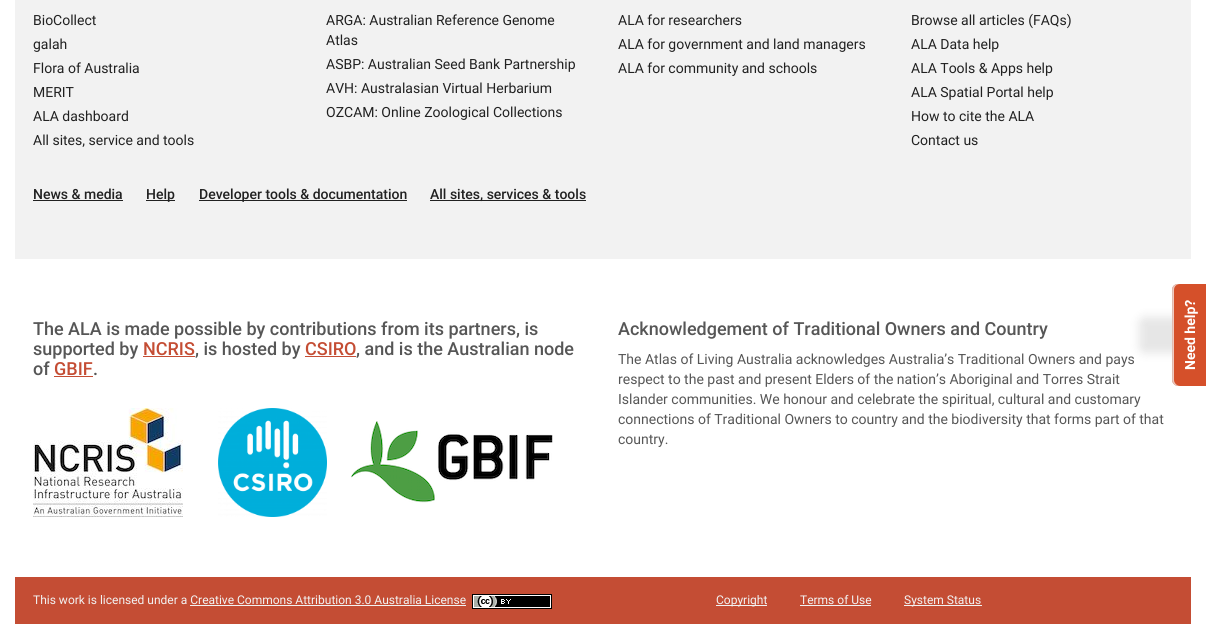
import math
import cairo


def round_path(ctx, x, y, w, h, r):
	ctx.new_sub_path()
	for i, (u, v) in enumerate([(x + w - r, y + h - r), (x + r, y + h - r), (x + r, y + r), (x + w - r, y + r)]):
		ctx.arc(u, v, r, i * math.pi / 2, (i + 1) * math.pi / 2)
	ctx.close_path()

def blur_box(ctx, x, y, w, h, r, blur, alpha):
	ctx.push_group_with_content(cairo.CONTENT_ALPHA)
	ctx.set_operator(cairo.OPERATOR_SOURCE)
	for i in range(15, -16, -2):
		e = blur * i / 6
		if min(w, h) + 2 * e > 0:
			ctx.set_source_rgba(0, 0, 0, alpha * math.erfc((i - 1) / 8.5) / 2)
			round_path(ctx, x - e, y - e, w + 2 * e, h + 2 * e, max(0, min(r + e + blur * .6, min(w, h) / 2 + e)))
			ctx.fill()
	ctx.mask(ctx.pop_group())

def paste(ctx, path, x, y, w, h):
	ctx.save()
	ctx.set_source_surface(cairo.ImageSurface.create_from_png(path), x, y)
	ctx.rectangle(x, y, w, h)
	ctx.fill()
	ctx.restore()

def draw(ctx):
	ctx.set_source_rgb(1, 1, 1)
	ctx.paint()
	ctx.set_source_rgb(0.949, 0.949, 0.949)
	ctx.rectangle(15, 0, 1176, 259)
	ctx.fill()
	ctx.select_font_face('Roboto')
	ctx.set_font_size(14)
	ctx.set_source_rgb(0.129, 0.129, 0.129)
	for x, y, s in [
		(33, 25, 'BioCollect'),
		(33, 49, 'galah'),
		(33, 73, 'Flora of Australia'),
		(33, 97, 'MERIT'),
		(33, 121, 'ALA dashboard'),
		(33, 145, 'All sites, service and tools'),
		(326, 25, 'ARGA: Australian Reference Genome'),
		(326, 45, 'Atlas'),
		(326, 69, 'ASBP: Australian Seed Bank Partnership'),
		(326, 93, 'AVH: Australasian Virtual Herbarium'),
		(326, 117, 'OZCAM: Online Zoological Collections'),
		(618, 25, 'ALA for researchers'),
		(618, 49, 'ALA for government and land managers'),
		(618, 73, 'ALA for community and schools'),
		(911, 25, 'Browse all articles (FAQs)'),
		(911, 49, 'ALA Data help'),
		(911, 73, 'ALA Tools & Apps help'),
		(911, 97, 'ALA Spatial Portal help'),
		(911, 121, 'How to cite the ALA'),
		(911, 145, 'Contact us'),
	]:
		ctx.move_to(x, y)
		ctx.show_text(s)
	ctx.select_font_face('Roboto Medium')
	ctx.move_to(33, 199)
	ctx.show_text('News & media')
	ctx.rectangle(33, 200, 90, 1)
	ctx.fill()
	ctx.rectangle(146, 200, 29, 1)
	ctx.fill()
	ctx.move_to(146, 199)
	ctx.show_text('Help')
	ctx.rectangle(199, 200, 208, 1)
	ctx.fill()
	ctx.move_to(199, 199)
	ctx.show_text('Developer tools & documentation')
	ctx.rectangle(430, 200, 156, 1)
	ctx.fill()
	ctx.move_to(430, 199)
	ctx.show_text('All sites, services & tools')
	ctx.set_font_size(18)
	ctx.set_source_rgb(0.337, 0.337, 0.337)
	ctx.move_to(33, 335)
	ctx.show_text('The ALA is made possible by contributions from its partners, is')
	ctx.move_to(33, 355)
	ctx.show_text('supported by')
	ctx.set_source_rgb(0.769, 0.302, 0.204)
	ctx.move_to(143, 355)
	ctx.show_text('NCRIS')
	ctx.rectangle(143, 356, 52, 1)
	ctx.fill()
	ctx.set_source_rgb(0.337, 0.337, 0.337)
	ctx.move_to(195, 355)
	ctx.show_text(', is hosted by')
	ctx.set_source_rgb(0.769, 0.302, 0.204)
	ctx.move_to(305, 355)
	ctx.show_text('CSIRO')
	ctx.rectangle(305, 356, 51, 1)
	ctx.fill()
	ctx.set_source_rgb(0.337, 0.337, 0.337)
	ctx.move_to(356, 355)
	ctx.show_text(', and is the Australian node')
	ctx.move_to(33, 375)
	ctx.show_text('of')
	ctx.set_source_rgb(0.769, 0.302, 0.204)
	ctx.move_to(54, 375)
	ctx.show_text('GBIF')
	ctx.rectangle(54, 376, 39, 1)
	ctx.fill()
	ctx.set_source_rgb(0.337, 0.337, 0.337)
	ctx.move_to(93, 375)
	ctx.show_text('.')
	paste(ctx, 'media/1.png', 33, 408, 150, 109)
	paste(ctx, 'media/2.png', 218, 408, 109, 109)
	paste(ctx, 'media/3.png', 351, 421, 202, 82)
	ctx.move_to(618, 335)
	ctx.show_text('Acknowledgement of Traditional Owners and Country')
	ctx.select_font_face('Roboto')
	ctx.set_font_size(14)
	for x, y, s in [
		(618, 364, 'The Atlas of Living Australia acknowledges Australia’s Traditional Owners and pays'),
		(618, 384, 'respect to the past and present Elders of the nation’s Aboriginal and Torres Strait'),
		(618, 404, 'Islander communities. We honour and celebrate the spiritual, cultural and customary'),
		(618, 424, 'connections of Traditional Owners to country and the biodiversity that forms part of that'),
		(618, 444, 'country.'),
	]:
		ctx.move_to(x, y)
		ctx.show_text(s)
	ctx.set_source_rgb(0.769, 0.302, 0.204)
	ctx.rectangle(15, 577, 1176, 47)
	ctx.fill()
	ctx.set_font_size(12)
	ctx.set_source_rgb(0.949, 0.949, 0.949)
	ctx.move_to(33, 604)
	ctx.show_text('This work is licensed under a Creative Commons Attribution 3.0 Australia License')
	paste(ctx, 'media/4.png', 472, 594, 80, 15)
	ctx.rectangle(190, 605, 276, 1)
	ctx.fill()
	ctx.rectangle(716, 605, 51, 1)
	ctx.fill()
	ctx.move_to(716, 604)
	ctx.show_text('Copyright')
	ctx.move_to(800, 604)
	ctx.show_text('Terms of Use')
	ctx.rectangle(800, 605, 71, 1)
	ctx.fill()
	ctx.rectangle(904, 605, 78, 1)
	ctx.fill()
	ctx.move_to(904, 604)
	ctx.show_text('System Status')
	ctx.set_source_rgb(0, 0, 0)
	blur_box(ctx, 1139, 317, 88, 36, 6, 5, 0.1)
	ctx.set_source_rgb(0.835, 0.314, 0.165)
	ctx.new_path()
	ctx.move_to(1172, 380)
	ctx.line_to(1172, 290)
	ctx.curve_to(1172, 286, 1175, 284, 1178, 284)
	ctx.line_to(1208, 284)
	ctx.line_to(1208, 386)
	ctx.line_to(1178, 386)
	ctx.curve_to(1175, 386, 1172, 383, 1172, 380)
	ctx.close_path()
	ctx.fill()
	ctx.set_source_rgba(1, 1, 1, 0.7)
	ctx.new_path()
	ctx.move_to(1174, 380)
	ctx.line_to(1174, 290)
	ctx.curve_to(1174, 286, 1177, 284, 1180, 284)
	ctx.line_to(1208, 284)
	ctx.line_to(1178, 284)
	ctx.curve_to(1175, 284, 1172, 286, 1172, 290)
	ctx.line_to(1172, 380)
	ctx.curve_to(1172, 383, 1175, 386, 1178, 386)
	ctx.line_to(1180, 386)
	ctx.curve_to(1177, 386, 1174, 383, 1174, 380)
	ctx.close_path()
	ctx.fill()
	ctx.set_source_rgba(0, 0, 0, 0.08)
	ctx.new_path()
	ctx.move_to(1173, 380)
	ctx.line_to(1173, 290)
	ctx.curve_to(1173, 286, 1176, 284, 1179, 284)
	ctx.line_to(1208, 284)
	ctx.line_to(1178, 284)
	ctx.curve_to(1175, 284, 1172, 286, 1172, 290)
	ctx.line_to(1172, 380)
	ctx.curve_to(1172, 383, 1175, 386, 1178, 386)
	ctx.line_to(1179, 386)
	ctx.curve_to(1176, 386, 1173, 383, 1173, 380)
	ctx.close_path()
	ctx.fill()
	ctx.select_font_face('Roboto', cairo.FONT_SLANT_NORMAL, cairo.FONT_WEIGHT_BOLD)
	ctx.set_font_size(14)
	ctx.set_source_rgb(1, 1, 1)
	ctx.save()
	ctx.translate(1195, 370)
	ctx.rotate(-90 * math.pi / 180)
	ctx.move_to(0, 0)
	ctx.show_text('Need help?')
	ctx.restore()


surface = cairo.ImageSurface(cairo.FORMAT_RGB24, 1206, 624)
ctx = cairo.Context(surface)
options = cairo.FontOptions()
options.set_hint_metrics(cairo.HINT_METRICS_OFF)
options.set_hint_style(cairo.HINT_STYLE_NONE)
ctx.set_font_options(options)
ctx.set_miter_limit(4)
draw(ctx)
surface.write_to_png('image.png')
